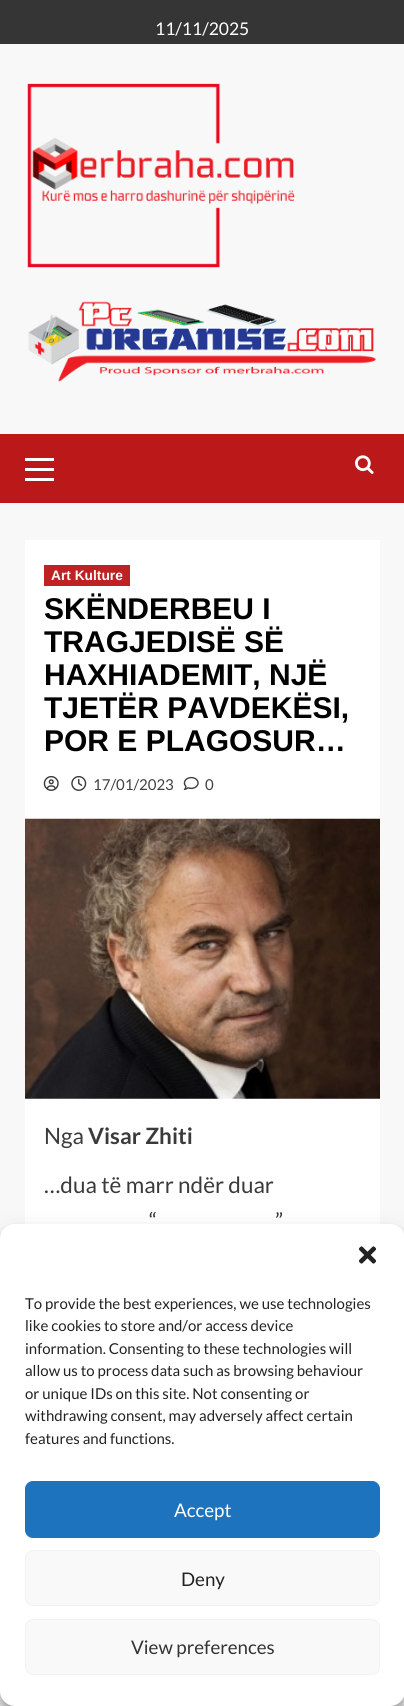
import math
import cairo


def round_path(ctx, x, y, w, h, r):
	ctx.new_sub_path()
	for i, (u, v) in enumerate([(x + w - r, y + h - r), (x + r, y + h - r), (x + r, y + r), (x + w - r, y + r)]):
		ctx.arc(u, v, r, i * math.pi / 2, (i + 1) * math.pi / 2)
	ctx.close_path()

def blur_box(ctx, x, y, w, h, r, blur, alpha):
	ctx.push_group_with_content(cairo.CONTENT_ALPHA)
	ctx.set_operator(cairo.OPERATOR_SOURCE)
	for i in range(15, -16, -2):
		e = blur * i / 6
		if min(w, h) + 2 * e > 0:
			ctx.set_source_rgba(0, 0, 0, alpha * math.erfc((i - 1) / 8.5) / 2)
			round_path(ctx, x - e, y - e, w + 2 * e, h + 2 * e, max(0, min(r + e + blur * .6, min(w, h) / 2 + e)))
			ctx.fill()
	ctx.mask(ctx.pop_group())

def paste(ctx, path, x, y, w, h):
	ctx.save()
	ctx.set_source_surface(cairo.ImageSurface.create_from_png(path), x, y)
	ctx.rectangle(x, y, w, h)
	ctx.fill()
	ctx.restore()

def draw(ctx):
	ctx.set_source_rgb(0.969, 0.969, 0.969)
	ctx.paint()
	ctx.set_source_rgb(0.208, 0.208, 0.208)
	ctx.rectangle(0, 0, 404, 44)
	ctx.fill()
	ctx.select_font_face('Lato')
	ctx.set_font_size(17.5)
	ctx.set_source_rgb(1, 1, 1)
	ctx.move_to(155, 35)
	ctx.show_text('11/11/2025')
	paste(ctx, 'media/1.png', 27, 83, 268, 185)
	paste(ctx, 'media/2.png', 28, 301, 348, 81)
	ctx.set_source_rgb(0.733, 0.098, 0.098)
	ctx.rectangle(0, 434, 404, 69)
	ctx.fill()
	ctx.set_source_rgb(1, 1, 1)
	ctx.rectangle(25, 468, 29, 3)
	ctx.rectangle(25, 458, 29, 3)
	ctx.rectangle(25, 478, 29, 3)
	ctx.fill()
	paste(ctx, 'media/3.png', 355, 455, 19, 19)
	ctx.rectangle(25, 540, 355, 684)
	ctx.fill()
	ctx.set_source_rgb(0.745, 0.133, 0.133)
	ctx.rectangle(44, 565, 86, 21)
	ctx.fill()
	ctx.select_font_face('Liberation Sans', cairo.FONT_SLANT_NORMAL, cairo.FONT_WEIGHT_BOLD)
	ctx.set_font_size(13.75)
	ctx.set_source_rgb(1, 1, 1)
	ctx.move_to(51, 580)
	ctx.show_text('Art Kulture')
	ctx.set_font_size(30)
	ctx.set_source_rgb(0, 0, 0)
	for x, y, s in [
		(44, 619, 'SKËNDERBEU I'),
		(44, 652, 'TRAGJEDISË SË'),
		(44, 685, 'HAXHIADEMIT, NJË'),
		(44, 718, 'TJETËR PAVDEKËSI,'),
		(44, 751, 'POR E PLAGOSUR…'),
	]:
		ctx.move_to(x, y)
		ctx.show_text(s)
	paste(ctx, 'media/4.png', 43, 775, 16, 16)
	paste(ctx, 'media/5.png', 71, 775, 16, 16)
	ctx.select_font_face('Lato')
	ctx.set_font_size(15)
	ctx.set_source_rgb(0.251, 0.251, 0.251)
	ctx.move_to(93, 790)
	ctx.show_text('17/01/2023')
	paste(ctx, 'media/6.png', 183, 776, 16, 14)
	ctx.move_to(205, 790)
	ctx.show_text('0')
	paste(ctx, 'media/7.png', 25, 818, 355, 281)
	ctx.set_font_size(22.5)
	ctx.set_source_rgb(0.227, 0.227, 0.227)
	ctx.move_to(44, 1144)
	ctx.show_text('Nga')
	ctx.select_font_face('Lato', cairo.FONT_SLANT_NORMAL, cairo.FONT_WEIGHT_BOLD)
	ctx.move_to(88, 1144)
	ctx.show_text('Visar Zhiti')
	ctx.select_font_face('Lato')
	for x, y, s in [
		(44, 1193, '…dua të marr ndër duar'),
		(149, 1229, '“'),
		(275, 1229, '”'),
	]:
		ctx.move_to(x, y)
		ctx.show_text(s)
	ctx.set_source_rgb(0, 0, 0)
	blur_box(ctx, 0, 1231, 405, 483, 15, 4, 0.23)
	blur_box(ctx, 0, 1236, 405, 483, 15, 12.5, 0.19)
	ctx.set_source_rgb(1, 1, 1)
	round_path(ctx, 0, 1224, 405, 482, 15)
	ctx.fill()
	paste(ctx, 'media/8.png', 358, 1246, 19, 18)
	ctx.set_font_size(15)
	ctx.set_source_rgb(0.133, 0.133, 0.133)
	for x, y, s in [
		(25, 1309, 'To provide the best experiences, we use technologies'),
		(25, 1331, 'like cookies to store and/or access device'),
		(25, 1354, 'information. Consenting to these technologies will'),
		(25, 1376, 'allow us to process data such as browsing behaviour'),
		(25, 1399, 'or unique IDs on this site. Not consenting or'),
		(25, 1421, 'withdrawing consent, may adversely affect certain'),
		(25, 1444, 'features and functions.'),
	]:
		ctx.move_to(x, y)
		ctx.show_text(s)
	ctx.set_source_rgb(0.118, 0.451, 0.745)
	round_path(ctx, 25.5, 1481.5, 354, 56, 7.5)
	ctx.fill_preserve()
	ctx.set_line_width(1)
	ctx.stroke()
	ctx.set_font_size(18.75)
	ctx.set_source_rgb(1, 1, 1)
	ctx.move_to(174, 1517)
	ctx.show_text('Accept')
	ctx.set_source_rgb(0.976, 0.976, 0.976)
	round_path(ctx, 25.5, 1550.5, 354, 55, 7.5)
	ctx.fill_preserve()
	ctx.set_source_rgb(0.949, 0.949, 0.949)
	ctx.stroke()
	ctx.set_source_rgb(0.133, 0.133, 0.133)
	ctx.move_to(181, 1586)
	ctx.show_text('Deny')
	ctx.set_source_rgb(0.976, 0.976, 0.976)
	round_path(ctx, 25.5, 1619.5, 354, 55, 7.5)
	ctx.fill_preserve()
	ctx.set_source_rgb(0.949, 0.949, 0.949)
	ctx.stroke()
	ctx.set_source_rgb(0.2, 0.2, 0.2)
	ctx.move_to(131, 1654)
	ctx.show_text('View preferences')


surface = cairo.ImageSurface(cairo.FORMAT_RGB24, 404, 1706)
ctx = cairo.Context(surface)
options = cairo.FontOptions()
options.set_hint_metrics(cairo.HINT_METRICS_OFF)
options.set_hint_style(cairo.HINT_STYLE_NONE)
ctx.set_font_options(options)
ctx.set_miter_limit(4)
draw(ctx)
surface.write_to_png('image.png')
